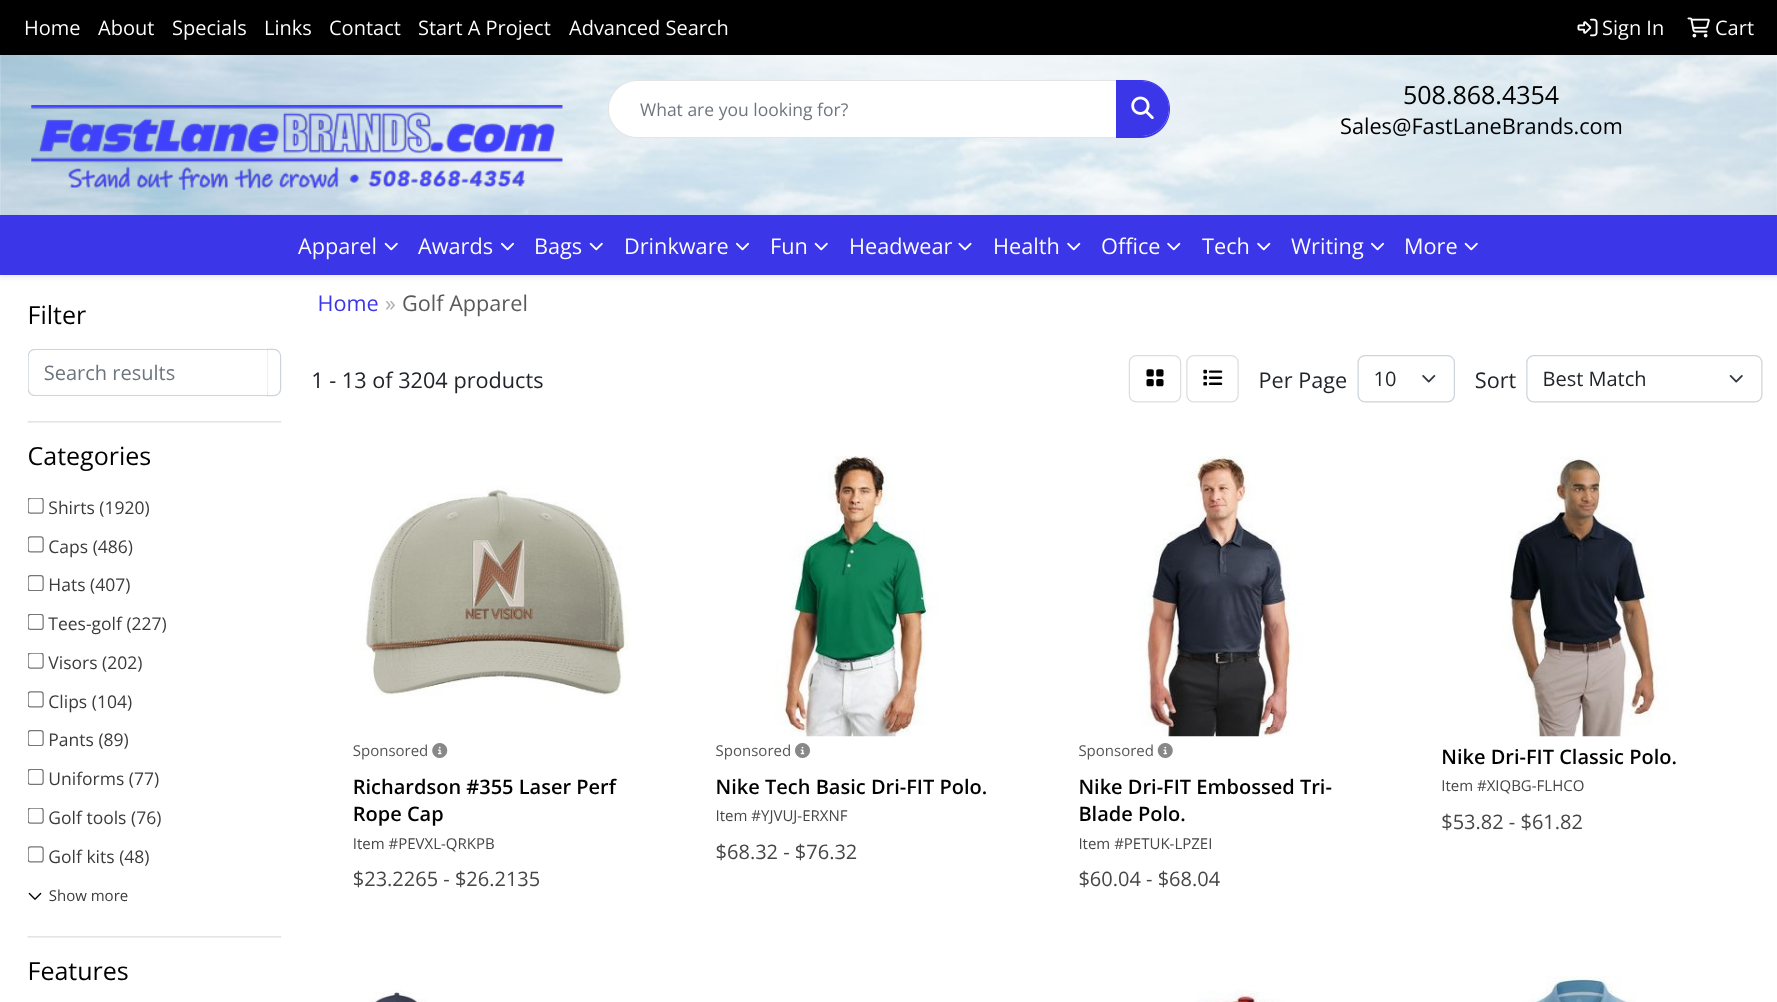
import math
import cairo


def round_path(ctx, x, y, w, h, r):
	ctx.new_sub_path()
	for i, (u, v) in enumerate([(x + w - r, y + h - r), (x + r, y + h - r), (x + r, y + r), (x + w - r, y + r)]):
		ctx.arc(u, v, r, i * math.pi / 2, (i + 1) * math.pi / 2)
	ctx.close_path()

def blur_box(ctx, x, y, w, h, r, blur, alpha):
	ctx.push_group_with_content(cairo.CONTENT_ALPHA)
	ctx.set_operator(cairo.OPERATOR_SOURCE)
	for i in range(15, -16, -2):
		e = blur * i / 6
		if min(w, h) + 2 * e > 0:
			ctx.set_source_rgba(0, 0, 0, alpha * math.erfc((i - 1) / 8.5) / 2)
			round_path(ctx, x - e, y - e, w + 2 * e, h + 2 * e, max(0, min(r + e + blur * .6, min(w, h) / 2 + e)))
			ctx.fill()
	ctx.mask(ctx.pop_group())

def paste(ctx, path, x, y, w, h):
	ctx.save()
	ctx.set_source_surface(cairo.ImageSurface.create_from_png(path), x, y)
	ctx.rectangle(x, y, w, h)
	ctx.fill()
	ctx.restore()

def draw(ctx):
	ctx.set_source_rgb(1, 1, 1)
	ctx.paint()
	paste(ctx, 'media/1.png', 0, 55, 1777, 160)
	ctx.set_source_rgb(0, 0, 0)
	ctx.rectangle(0, 0, 1777, 55)
	ctx.fill()
	ctx.select_font_face('Open Sans')
	ctx.set_font_size(20)
	ctx.set_source_rgb(1, 1, 1)
	for x, y, s in [
		(24, 35, 'Home'),
		(98, 35, 'About'),
		(172, 35, 'Specials'),
		(264, 35, 'Links'),
		(329, 35, 'Contact'),
		(418, 35, 'Start A Project'),
		(569, 35, 'Advanced Search'),
	]:
		ctx.move_to(x, y)
		ctx.show_text(s)
	paste(ctx, 'media/2.png', 1577, 18, 21, 19)
	ctx.move_to(1602, 35)
	ctx.show_text('Sign In')
	paste(ctx, 'media/3.png', 1687, 17, 23, 21)
	ctx.move_to(1715, 35)
	ctx.show_text('Cart')
	paste(ctx, 'media/4.png', 31, 105, 532, 85)
	ctx.new_path()
	ctx.move_to(637, 80.5)
	ctx.line_to(1117.5, 80.5)
	ctx.line_to(1117.5, 137.5)
	ctx.line_to(637, 137.5)
	ctx.curve_to(621.5, 137.5, 608.5, 124.5, 608.5, 109)
	ctx.curve_to(608.5, 93.5, 621.5, 80.5, 637, 80.5)
	ctx.close_path()
	ctx.fill_preserve()
	ctx.set_source_rgb(0.894, 0.894, 0.894)
	ctx.set_line_width(1)
	ctx.stroke()
	ctx.set_font_size(17.5)
	ctx.set_source_rgb(0.424, 0.459, 0.49)
	ctx.move_to(640, 116)
	ctx.show_text('What are you looking for?')
	ctx.set_source_rgb(0.235, 0.212, 0.914)
	ctx.new_path()
	ctx.move_to(1116, 81)
	ctx.line_to(1141.5, 81)
	ctx.curve_to(1156.5, 81, 1169, 93.5, 1169, 108.5)
	ctx.curve_to(1169, 123.5, 1156.5, 136, 1141.5, 136)
	ctx.line_to(1116, 136)
	ctx.close_path()
	ctx.fill()
	ctx.set_fill_rule(cairo.FILL_RULE_EVEN_ODD)
	ctx.new_path()
	ctx.move_to(1116, 80)
	ctx.line_to(1141, 80)
	ctx.curve_to(1157, 80, 1170, 93, 1170, 109)
	ctx.curve_to(1170, 125, 1157, 138, 1141, 138)
	ctx.line_to(1116, 138)
	ctx.close_path()
	ctx.move_to(1116, 81)
	ctx.line_to(1141, 81)
	ctx.curve_to(1156, 81, 1169, 94, 1169, 109)
	ctx.curve_to(1169, 124, 1156, 136, 1141, 136)
	ctx.line_to(1116, 136)
	ctx.close_path()
	ctx.fill()
	paste(ctx, 'media/5.png', 1131, 96, 23, 23)
	ctx.set_font_size(25)
	ctx.set_source_rgb(0, 0, 0)
	ctx.move_to(1403, 104)
	ctx.show_text('508.868.4354')
	ctx.set_font_size(21.7)
	ctx.move_to(1340, 134)
	ctx.show_text('Sales@FastLaneBrands.com')
	ctx.set_source_rgb(0, 0, 0)
	blur_box(ctx, 0, 218, 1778, 60, 0, 2.5, 0.07)
	ctx.set_source_rgb(0.235, 0.212, 0.914)
	ctx.rectangle(0, 215, 1777, 60)
	ctx.fill()
	ctx.set_source_rgb(1, 1, 1)
	ctx.move_to(298, 254)
	ctx.show_text('Apparel')
	paste(ctx, 'media/6.png', 384, 242, 14, 9)
	ctx.move_to(418, 254)
	ctx.show_text('Awards')
	paste(ctx, 'media/7.png', 501, 242, 13, 9)
	ctx.move_to(534, 254)
	ctx.show_text('Bags')
	paste(ctx, 'media/6.png', 589, 242, 14, 9)
	ctx.move_to(624, 254)
	ctx.show_text('Drinkware')
	paste(ctx, 'media/7.png', 736, 242, 13, 9)
	ctx.move_to(770, 254)
	ctx.show_text('Fun')
	paste(ctx, 'media/6.png', 814, 242, 14, 9)
	ctx.move_to(849, 254)
	ctx.show_text('Headwear')
	paste(ctx, 'media/8.png', 958, 242, 14, 9)
	ctx.move_to(993, 254)
	ctx.show_text('Health')
	paste(ctx, 'media/9.png', 1067, 242, 14, 9)
	ctx.move_to(1101, 254)
	ctx.show_text('Office')
	paste(ctx, 'media/9.png', 1167, 242, 14, 9)
	ctx.move_to(1202, 254)
	ctx.show_text('Tech')
	paste(ctx, 'media/9.png', 1257, 242, 14, 9)
	ctx.move_to(1291, 254)
	ctx.show_text('Writing')
	paste(ctx, 'media/7.png', 1371, 242, 13, 9)
	ctx.move_to(1404, 254)
	ctx.show_text('More')
	paste(ctx, 'media/6.png', 1464, 242, 14, 9)
	paste(ctx, 'media/10.png', 27, 294, 1736, 708)


surface = cairo.ImageSurface(cairo.FORMAT_RGB24, 1777, 1002)
ctx = cairo.Context(surface)
options = cairo.FontOptions()
options.set_hint_metrics(cairo.HINT_METRICS_OFF)
options.set_hint_style(cairo.HINT_STYLE_NONE)
ctx.set_font_options(options)
ctx.set_miter_limit(4)
draw(ctx)
surface.write_to_png('image.png')
